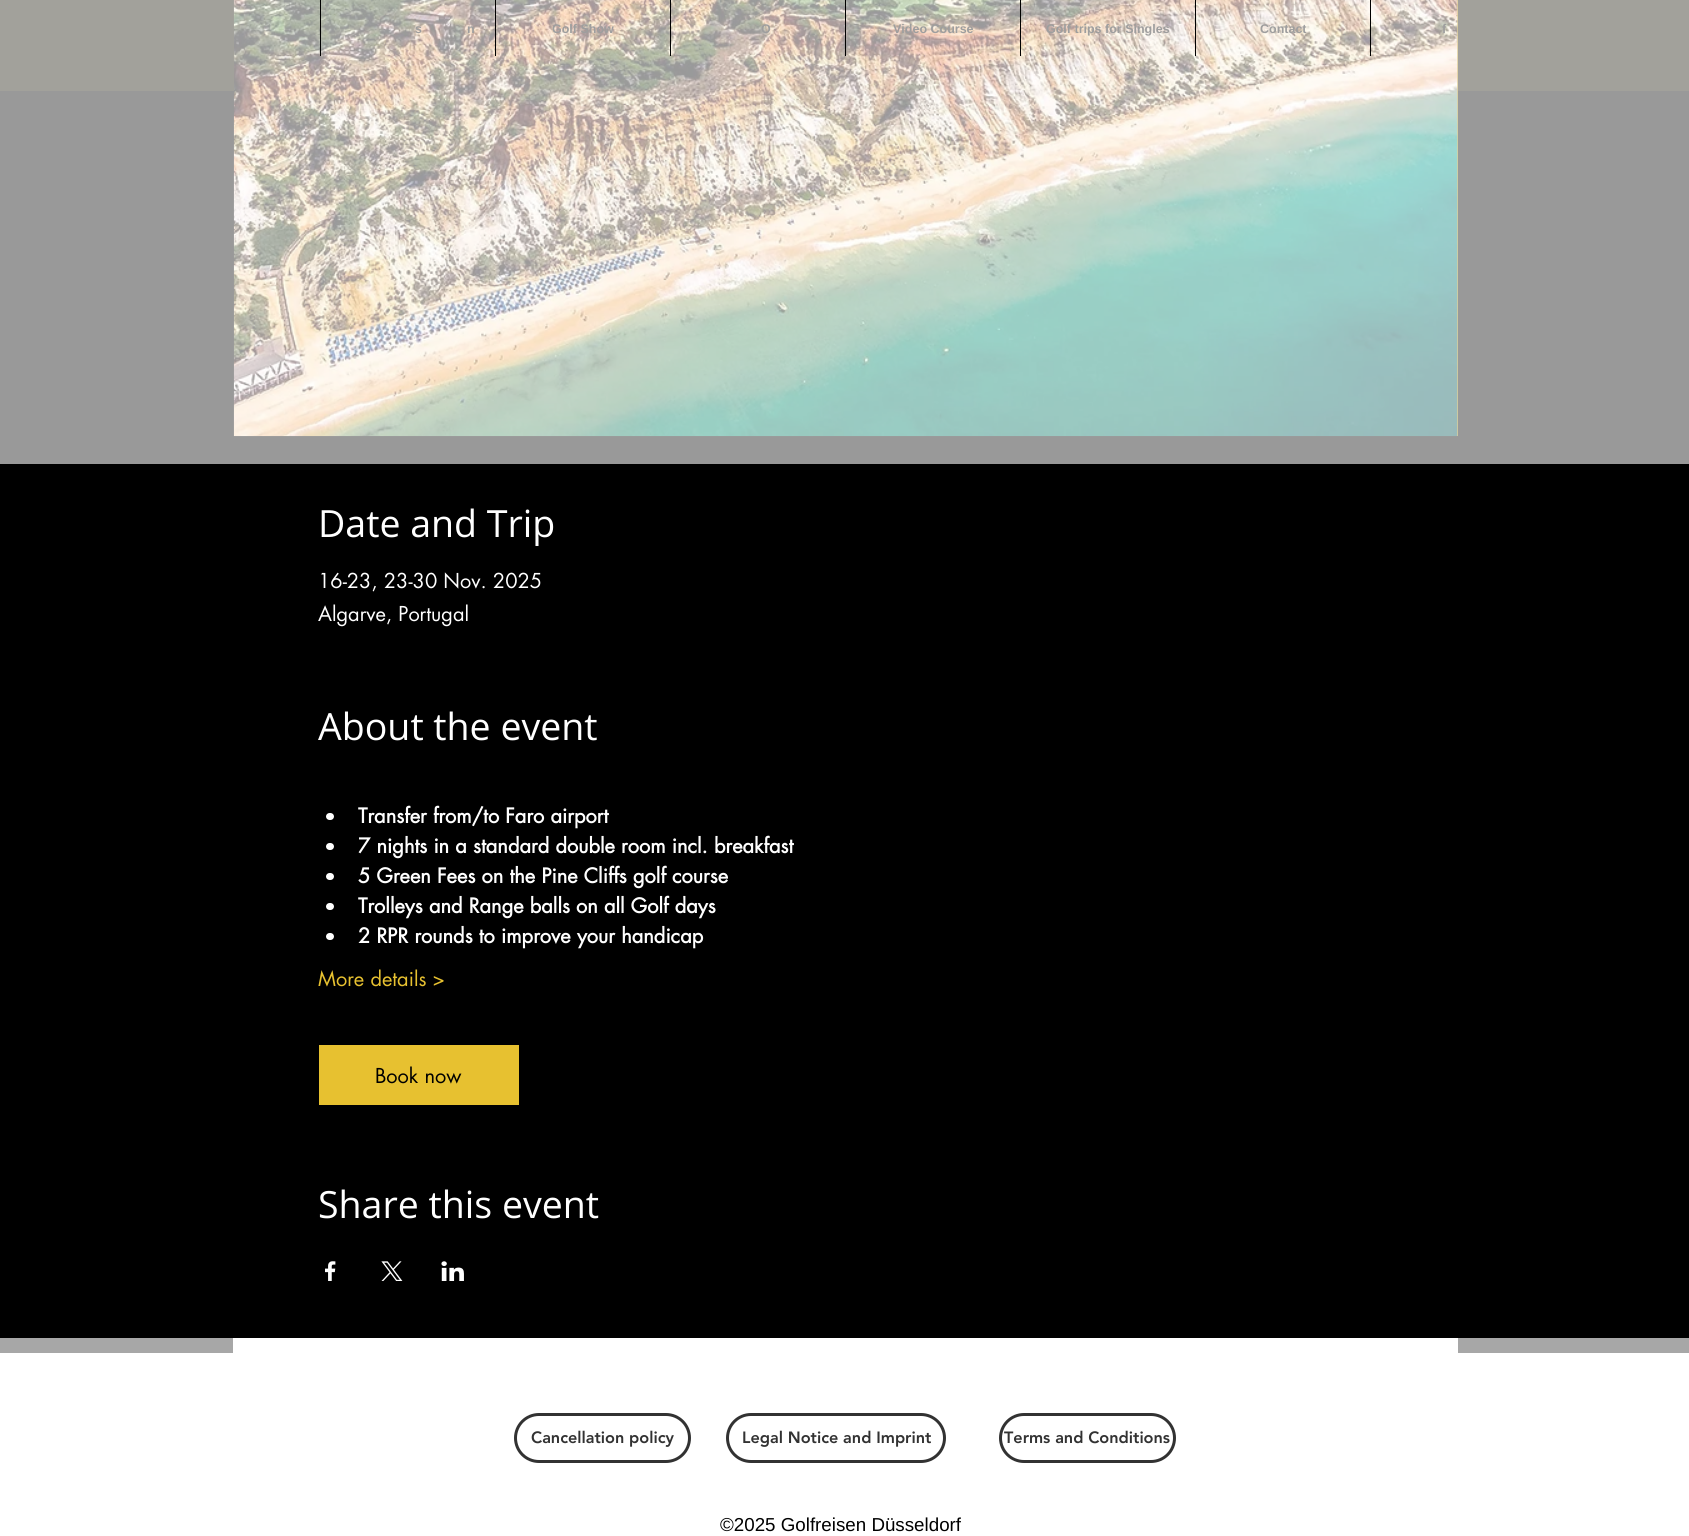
import math
import cairo


def round_path(ctx, x, y, w, h, r):
	ctx.new_sub_path()
	for i, (u, v) in enumerate([(x + w - r, y + h - r), (x + r, y + h - r), (x + r, y + r), (x + w - r, y + r)]):
		ctx.arc(u, v, r, i * math.pi / 2, (i + 1) * math.pi / 2)
	ctx.close_path()

def paste(ctx, path, x, y, w, h):
	ctx.save()
	ctx.set_source_surface(cairo.ImageSurface.create_from_png(path), x, y)
	ctx.rectangle(x, y, w, h)
	ctx.fill()
	ctx.restore()

def draw(ctx):
	ctx.set_source_rgb(0.655, 0.655, 0.655)
	ctx.paint()
	ctx.set_source_rgb(0.635, 0.631, 0.608)
	ctx.rectangle(0, 0, 1689, 91)
	ctx.fill()
	ctx.set_source_rgb(0.6, 0.6, 0.6)
	ctx.rectangle(0, 91, 1689, 373)
	ctx.fill()
	ctx.set_source_rgb(0.867, 0.812, 0.6)
	ctx.rectangle(1457, 0, 1, 436)
	ctx.fill()
	paste(ctx, 'media/1.png', 233, 0, 1225, 437)
	ctx.set_source_rgb(0, 0, 0)
	ctx.rectangle(320, 0, 1, 56)
	ctx.fill()
	ctx.select_font_face('Liberation Sans', cairo.FONT_SLANT_NORMAL, cairo.FONT_WEIGHT_BOLD)
	ctx.set_font_size(12.5)
	ctx.set_source_rgb(0.62, 0.62, 0.62)
	ctx.move_to(415, 33)
	ctx.show_text('s')
	ctx.move_to(467, 33)
	ctx.show_text('n')
	ctx.set_source_rgb(0, 0, 0)
	ctx.rectangle(495, 0, 1, 56)
	ctx.fill()
	ctx.set_source_rgb(0.62, 0.62, 0.62)
	ctx.move_to(552, 33)
	ctx.show_text('Golf Show')
	ctx.set_source_rgb(0, 0, 0)
	ctx.rectangle(670, 0, 1, 56)
	ctx.fill()
	ctx.set_source_rgb(0.62, 0.62, 0.62)
	ctx.move_to(761, 33)
	ctx.show_text('O')
	ctx.set_source_rgb(0, 0, 0)
	ctx.rectangle(845, 0, 1, 56)
	ctx.fill()
	ctx.set_source_rgb(0.62, 0.62, 0.62)
	ctx.move_to(893, 33)
	ctx.show_text('Video Course')
	ctx.set_source_rgb(0, 0, 0)
	ctx.rectangle(1020, 0, 1, 56)
	ctx.fill()
	ctx.set_source_rgb(0.62, 0.62, 0.62)
	ctx.move_to(1046, 33)
	ctx.show_text('Golf trips for Singles')
	ctx.set_source_rgb(0, 0, 0)
	ctx.rectangle(1195, 0, 1, 56)
	ctx.fill()
	ctx.set_source_rgb(0.62, 0.62, 0.62)
	ctx.move_to(1260, 33)
	ctx.show_text('Contact')
	ctx.set_source_rgb(0, 0, 0)
	ctx.rectangle(1370, 0, 1, 56)
	ctx.fill()
	ctx.set_source_rgb(0.62, 0.62, 0.62)
	ctx.move_to(1442, 33)
	ctx.show_text('f')
	ctx.set_source_rgb(0, 0, 0)
	ctx.rectangle(0, 464, 1689, 874)
	ctx.fill()
	ctx.select_font_face('Open Sans')
	ctx.set_font_size(37.5)
	ctx.set_source_rgb(1, 1, 1)
	ctx.move_to(318, 537)
	ctx.show_text('Date and Trip')
	ctx.select_font_face('futura')
	ctx.set_font_size(20)
	ctx.move_to(318, 588)
	ctx.show_text('16-23, 23-30 Nov. 2025')
	ctx.move_to(318, 621)
	ctx.show_text('Algarve, Portugal')
	ctx.select_font_face('Open Sans')
	ctx.set_font_size(37.5)
	ctx.move_to(318, 740)
	ctx.show_text('About the event')
	round_path(ctx, 326, 813, 8, 7, 3.5)
	ctx.fill()
	ctx.select_font_face('futura', cairo.FONT_SLANT_NORMAL, cairo.FONT_WEIGHT_BOLD)
	ctx.set_font_size(20)
	ctx.move_to(358, 823)
	ctx.show_text('Transfer from/to Faro airport')
	round_path(ctx, 326, 843, 8, 7, 3.5)
	ctx.fill()
	ctx.move_to(358, 853)
	ctx.show_text('7 nights in a standard double room incl. breakfast')
	round_path(ctx, 326, 873, 8, 7, 3.5)
	ctx.fill()
	ctx.move_to(358, 883)
	ctx.show_text('5 Green Fees on the Pine Cliffs golf course')
	round_path(ctx, 326, 903, 8, 7, 3.5)
	ctx.fill()
	ctx.move_to(358, 913)
	ctx.show_text('Trolleys and Range balls on all Golf days')
	round_path(ctx, 326, 933, 8, 7, 3.5)
	ctx.fill()
	ctx.move_to(358, 943)
	ctx.show_text('2 RPR rounds to improve your handicap')
	ctx.select_font_face('futura')
	ctx.set_source_rgb(0.906, 0.757, 0.188)
	ctx.move_to(318, 986)
	ctx.show_text('More details >')
	ctx.rectangle(319, 1045, 200, 60)
	ctx.fill()
	ctx.set_source_rgb(0, 0, 0)
	ctx.move_to(375, 1083)
	ctx.show_text('Book now')
	ctx.select_font_face('Open Sans')
	ctx.set_font_size(37.5)
	ctx.set_source_rgb(1, 1, 1)
	ctx.move_to(318, 1218)
	ctx.show_text('Share this event')
	paste(ctx, 'media/2.png', 325, 1261, 11, 20)
	paste(ctx, 'media/3.png', 381, 1261, 22, 20)
	paste(ctx, 'media/4.png', 441, 1261, 23, 20)
	ctx.rectangle(233, 1338, 1225, 15)
	ctx.fill()
	ctx.rectangle(0, 1353, 1689, 183)
	ctx.fill()
	round_path(ctx, 515.5, 1414.5, 174, 47, 23.5)
	ctx.set_source_rgb(0.196, 0.196, 0.196)
	ctx.set_line_width(3)
	ctx.stroke()
	ctx.select_font_face('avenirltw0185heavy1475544 Black')
	ctx.set_font_size(16.25)
	ctx.move_to(531, 1443)
	ctx.show_text('Cancellation policy')
	round_path(ctx, 727.5, 1414.5, 217, 47, 23.5)
	ctx.stroke()
	ctx.move_to(742, 1443)
	ctx.show_text('Legal Notice and Imprint')
	round_path(ctx, 1000.5, 1414.5, 174, 47, 23.5)
	ctx.stroke()
	ctx.move_to(1004, 1443)
	ctx.show_text('Terms and Conditions')
	ctx.select_font_face('Liberation Sans')
	ctx.set_font_size(18.75)
	ctx.set_source_rgb(0, 0, 0)
	ctx.move_to(720, 1531)
	ctx.show_text('©2025 Golfreisen Düsseldorf')


surface = cairo.ImageSurface(cairo.FORMAT_RGB24, 1689, 1536)
ctx = cairo.Context(surface)
options = cairo.FontOptions()
options.set_hint_metrics(cairo.HINT_METRICS_OFF)
options.set_hint_style(cairo.HINT_STYLE_NONE)
ctx.set_font_options(options)
ctx.set_miter_limit(4)
draw(ctx)
surface.write_to_png('image.png')
